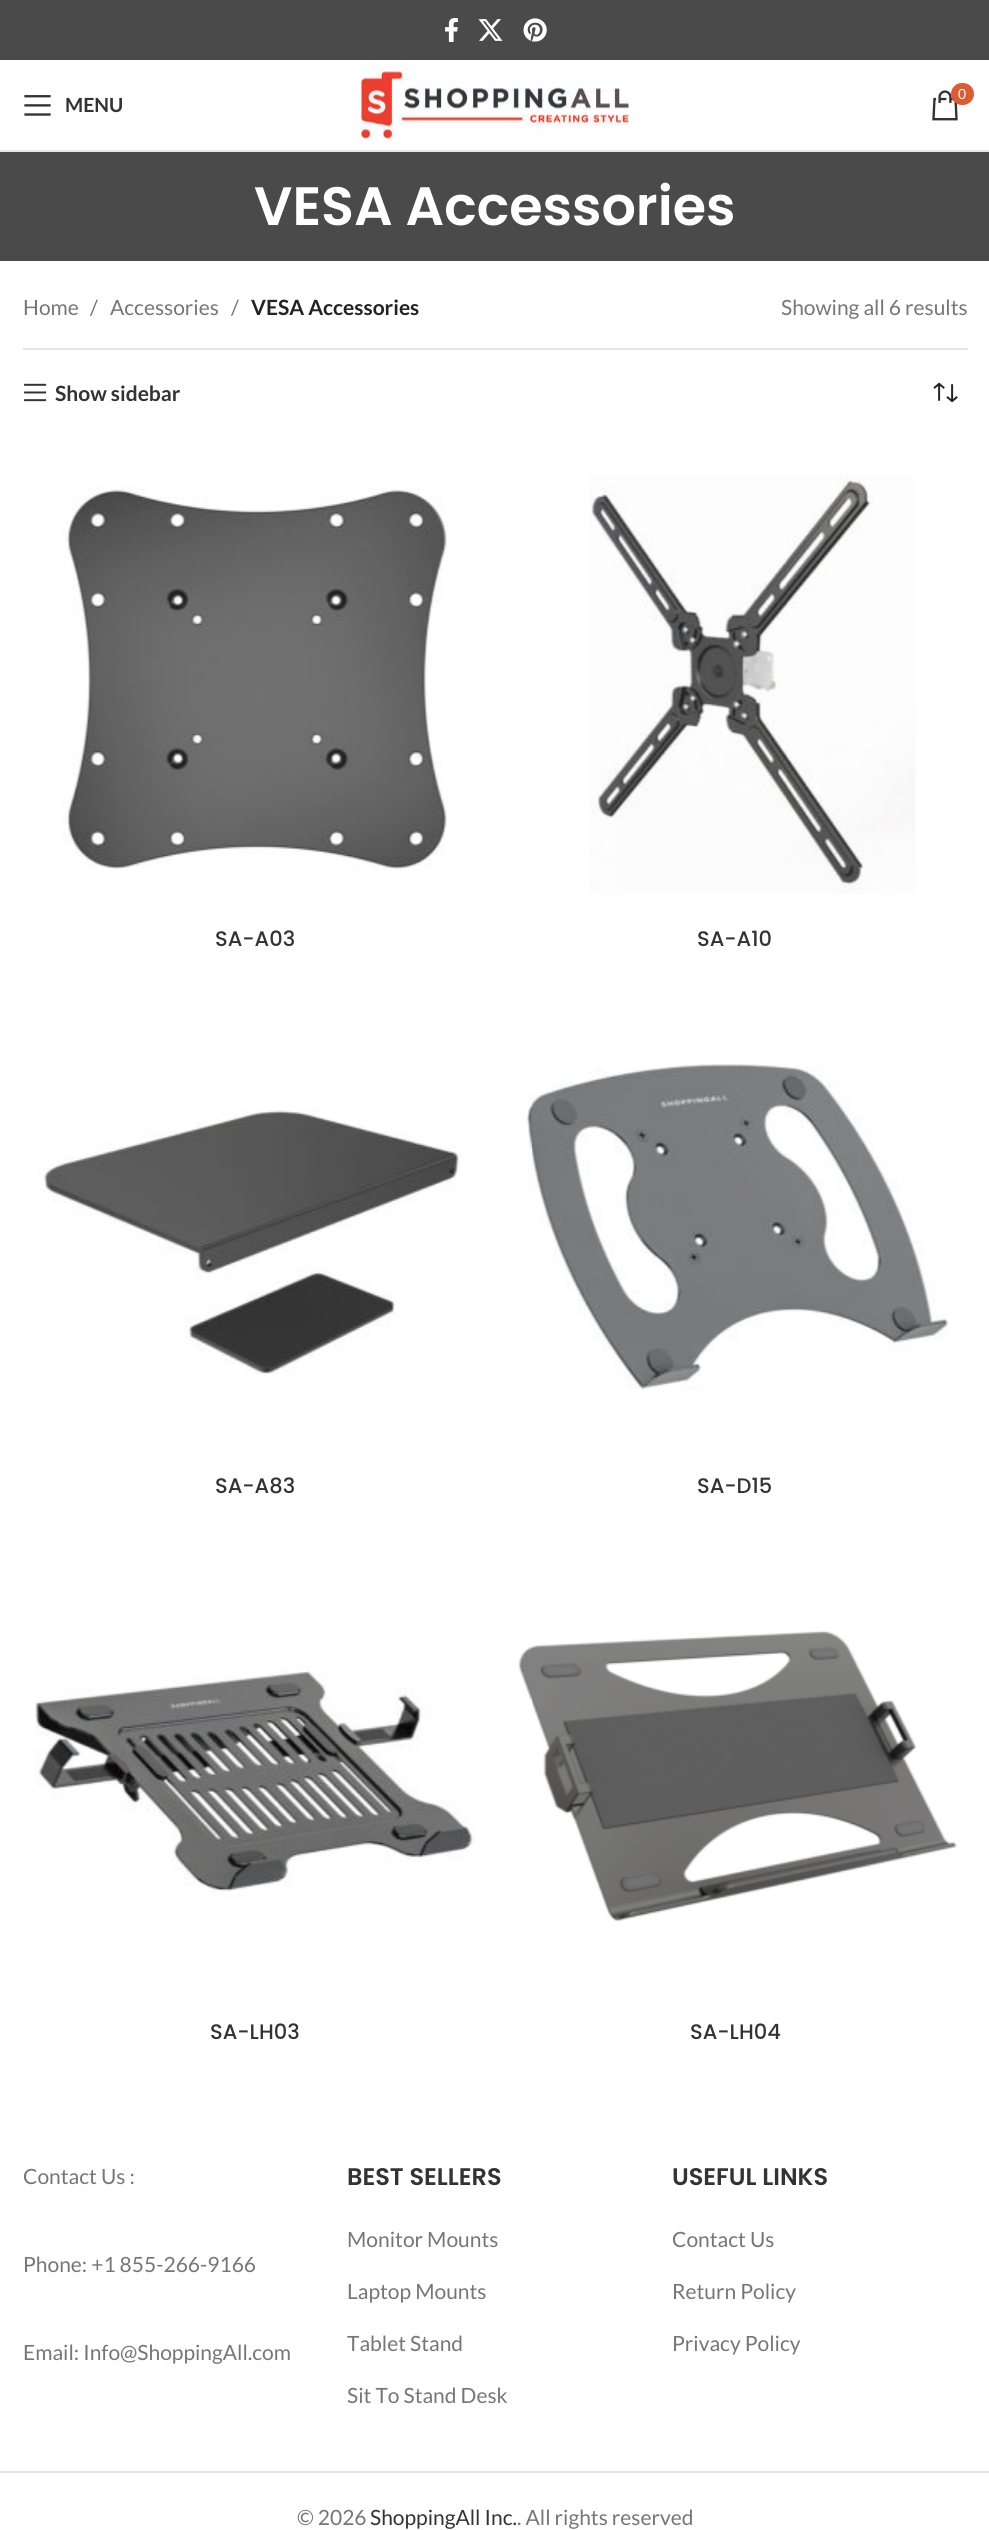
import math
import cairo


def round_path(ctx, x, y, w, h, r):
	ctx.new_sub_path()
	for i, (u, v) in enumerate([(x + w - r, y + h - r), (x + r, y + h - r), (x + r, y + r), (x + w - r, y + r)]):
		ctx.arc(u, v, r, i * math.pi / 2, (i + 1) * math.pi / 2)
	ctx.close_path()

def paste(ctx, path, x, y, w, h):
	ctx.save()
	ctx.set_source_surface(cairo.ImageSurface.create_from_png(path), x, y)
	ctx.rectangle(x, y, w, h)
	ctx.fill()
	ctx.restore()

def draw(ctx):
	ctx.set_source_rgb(1, 1, 1)
	ctx.paint()
	ctx.set_source_rgb(0.29, 0.29, 0.29)
	ctx.rectangle(0, 0, 989, 60)
	ctx.fill()
	paste(ctx, 'media/1.png', 445, 18, 13, 24)
	paste(ctx, 'media/2.png', 478, 19, 25, 22)
	paste(ctx, 'media/3.png', 523, 18, 24, 24)
	ctx.set_source_rgb(0.91, 0.91, 0.91)
	ctx.rectangle(0, 150, 989, 2)
	ctx.fill()
	paste(ctx, 'media/4.png', 361, 71, 268, 68)
	paste(ctx, 'media/5.png', 932, 90, 26, 31)
	ctx.set_source_rgb(0.867, 0.353, 0.2)
	round_path(ctx, 951, 83, 23, 22, 11)
	ctx.fill()
	ctx.select_font_face('Lato')
	ctx.set_font_size(14)
	ctx.set_source_rgb(1, 1, 1)
	ctx.move_to(958, 99)
	ctx.show_text('0')
	paste(ctx, 'media/6.png', 24, 95, 27, 21)
	ctx.select_font_face('Lato', cairo.FONT_SLANT_NORMAL, cairo.FONT_WEIGHT_BOLD)
	ctx.set_font_size(19.5)
	ctx.set_source_rgb(0.2, 0.2, 0.2)
	ctx.move_to(65, 112)
	ctx.show_text('MENU')
	ctx.set_source_rgb(0.29, 0.29, 0.29)
	ctx.rectangle(0, 152, 989, 109)
	ctx.fill()
	ctx.select_font_face('Poppins SemiBold')
	ctx.set_font_size(54)
	ctx.set_source_rgb(1, 1, 1)
	ctx.move_to(254, 225)
	ctx.show_text('VESA Accessories')
	ctx.set_source_rgb(0.894, 0.894, 0.894)
	ctx.rectangle(23, 348, 945, 2)
	ctx.fill()
	ctx.select_font_face('Lato')
	ctx.set_font_size(21)
	ctx.set_source_rgb(0.463, 0.463, 0.463)
	for x, y, s in [
		(23, 315, 'Home'),
		(90, 315, '/'),
		(110, 315, 'Accessories'),
		(231, 315, '/'),
	]:
		ctx.move_to(x, y)
		ctx.show_text(s)
	ctx.select_font_face('Lato', cairo.FONT_SLANT_NORMAL, cairo.FONT_WEIGHT_BOLD)
	ctx.set_source_rgb(0.141, 0.141, 0.141)
	ctx.move_to(251, 315)
	ctx.show_text('VESA Accessories')
	ctx.select_font_face('Lato')
	ctx.set_source_rgb(0.463, 0.463, 0.463)
	ctx.move_to(781, 315)
	ctx.show_text('Showing all 6 results')
	paste(ctx, 'media/7.png', 24, 383, 23, 19)
	ctx.select_font_face('Lato', cairo.FONT_SLANT_NORMAL, cairo.FONT_WEIGHT_BOLD)
	ctx.set_source_rgb(0.2, 0.2, 0.2)
	ctx.move_to(55, 401)
	ctx.show_text('Show sidebar')
	paste(ctx, 'media/8.png', 933, 382, 25, 21)
	paste(ctx, 'media/9.png', 62, 486, 385, 383)
	ctx.select_font_face('Poppins Medium')
	ctx.move_to(215, 946)
	ctx.show_text('SA-A03')
	paste(ctx, 'media/10.png', 589, 475, 327, 419)
	ctx.move_to(697, 946)
	ctx.show_text('SA-A10')
	paste(ctx, 'media/11.png', 38, 1109, 423, 266)
	ctx.move_to(215, 1493)
	ctx.show_text('SA-A83')
	paste(ctx, 'media/12.png', 526, 1063, 423, 327)
	ctx.move_to(697, 1493)
	ctx.show_text('SA-D15')
	paste(ctx, 'media/13.png', 35, 1666, 440, 232)
	ctx.move_to(210, 2039)
	ctx.show_text('SA-LH03')
	paste(ctx, 'media/14.png', 518, 1630, 440, 292)
	ctx.move_to(690, 2039)
	ctx.show_text('SA-LH04')
	ctx.select_font_face('Lato')
	ctx.set_source_rgb(0.463, 0.463, 0.463)
	for x, y, s in [
		(23, 2184, 'Contact Us :'),
		(23, 2272, 'Phone: +1 855-266-9166'),
		(23, 2360, 'Email: Info@ShoppingAll.com'),
	]:
		ctx.move_to(x, y)
		ctx.show_text(s)
	ctx.select_font_face('Poppins SemiBold')
	ctx.set_font_size(24)
	ctx.set_source_rgb(0.2, 0.2, 0.2)
	ctx.move_to(347, 2185)
	ctx.show_text('BEST SELLERS')
	ctx.select_font_face('Lato')
	ctx.set_font_size(21)
	ctx.set_source_rgb(0.463, 0.463, 0.463)
	for x, y, s in [
		(347, 2247, 'Monitor Mounts'),
		(347, 2299, 'Laptop Mounts'),
		(347, 2351, 'Tablet Stand'),
		(347, 2403, 'Sit To Stand Desk'),
	]:
		ctx.move_to(x, y)
		ctx.show_text(s)
	ctx.select_font_face('Poppins SemiBold')
	ctx.set_font_size(24)
	ctx.set_source_rgb(0.2, 0.2, 0.2)
	ctx.move_to(672, 2185)
	ctx.show_text('USEFUL LINKS')
	ctx.select_font_face('Lato')
	ctx.set_font_size(21)
	ctx.set_source_rgb(0.463, 0.463, 0.463)
	for x, y, s in [
		(672, 2247, 'Contact Us'),
		(672, 2299, 'Return Policy'),
		(672, 2351, 'Privacy Policy'),
	]:
		ctx.move_to(x, y)
		ctx.show_text(s)
	ctx.set_source_rgb(0.894, 0.894, 0.894)
	ctx.rectangle(0, 2471, 989, 2)
	ctx.fill()
	ctx.set_source_rgb(0.463, 0.463, 0.463)
	ctx.move_to(297, 2525)
	ctx.show_text('© 2026')
	ctx.set_source_rgb(0.2, 0.2, 0.2)
	ctx.move_to(370, 2525)
	ctx.show_text('ShoppingAll Inc.')
	ctx.set_source_rgb(0.463, 0.463, 0.463)
	ctx.move_to(517, 2525)
	ctx.show_text('. All rights reserved')


surface = cairo.ImageSurface(cairo.FORMAT_RGB24, 989, 2530)
ctx = cairo.Context(surface)
options = cairo.FontOptions()
options.set_hint_metrics(cairo.HINT_METRICS_OFF)
options.set_hint_style(cairo.HINT_STYLE_NONE)
ctx.set_font_options(options)
ctx.set_miter_limit(4)
draw(ctx)
surface.write_to_png('image.png')
